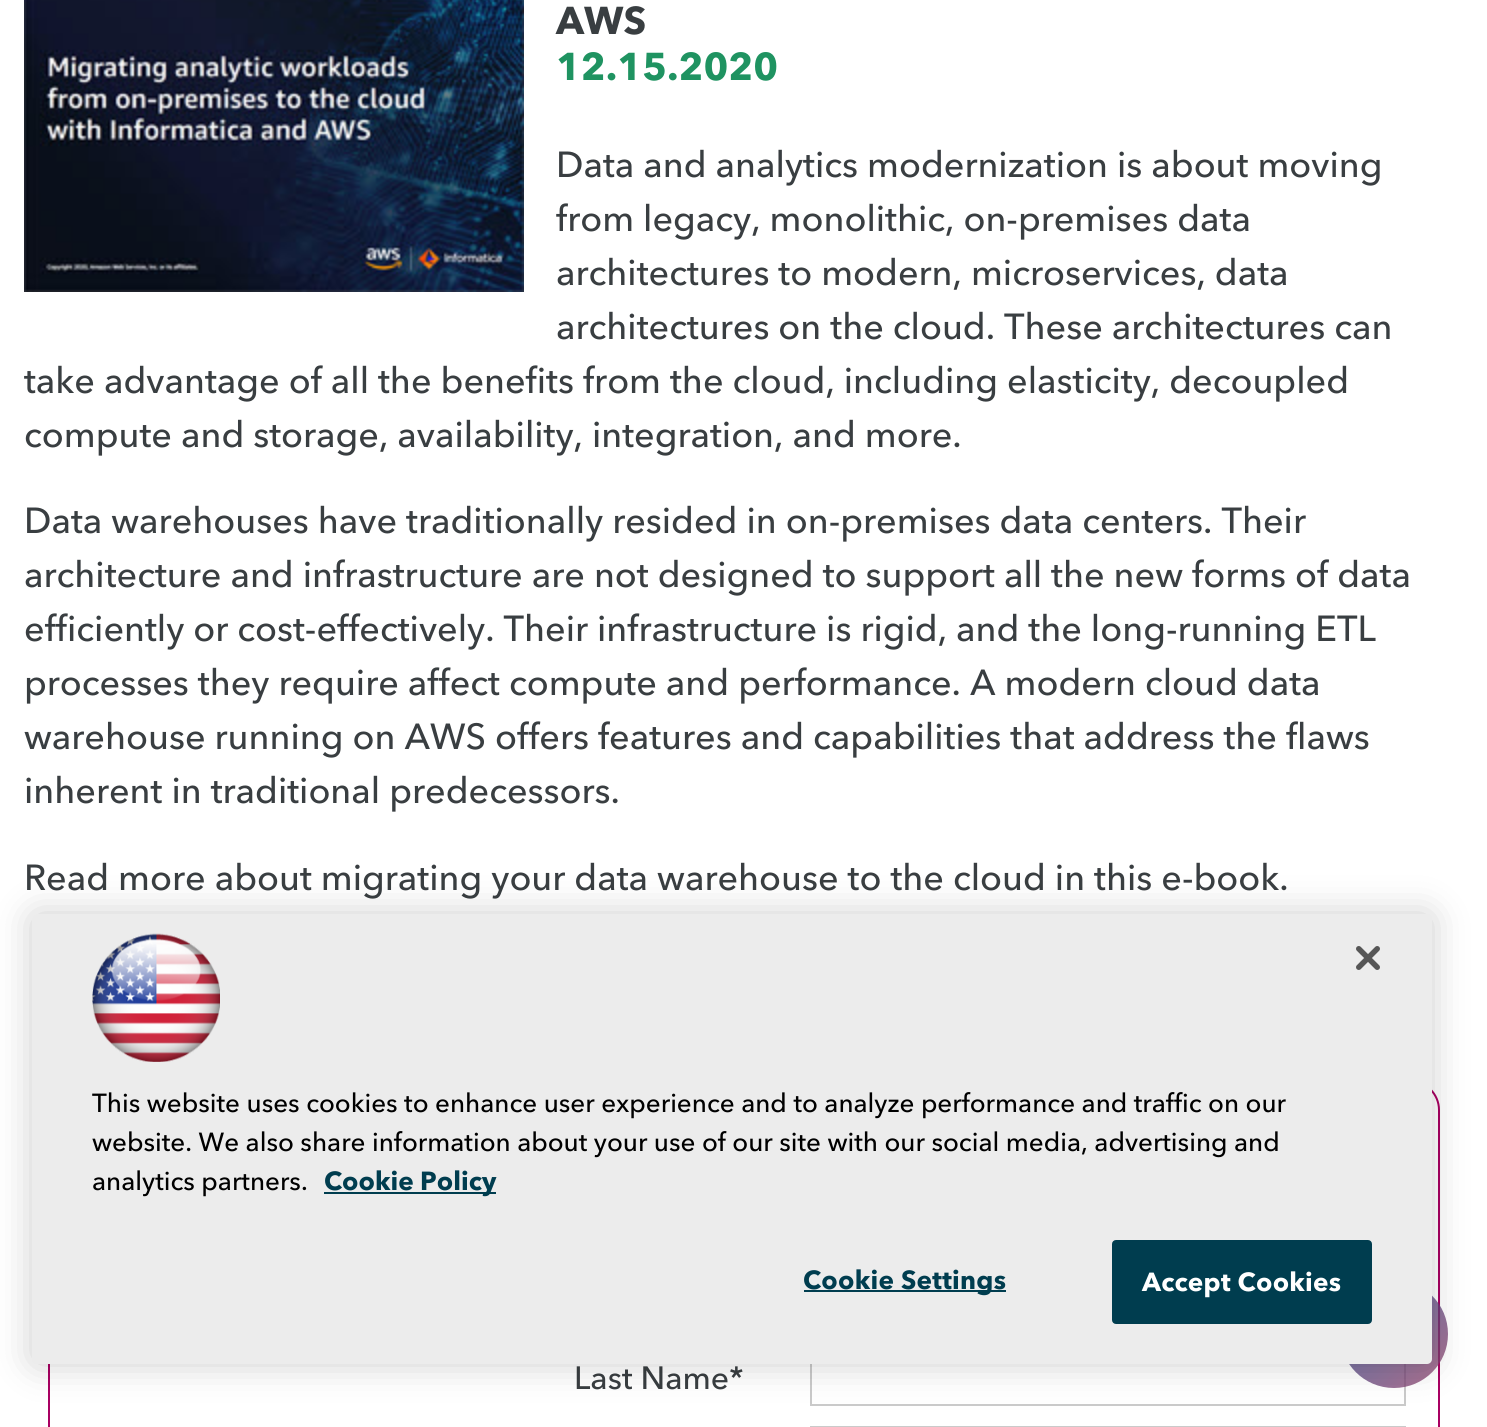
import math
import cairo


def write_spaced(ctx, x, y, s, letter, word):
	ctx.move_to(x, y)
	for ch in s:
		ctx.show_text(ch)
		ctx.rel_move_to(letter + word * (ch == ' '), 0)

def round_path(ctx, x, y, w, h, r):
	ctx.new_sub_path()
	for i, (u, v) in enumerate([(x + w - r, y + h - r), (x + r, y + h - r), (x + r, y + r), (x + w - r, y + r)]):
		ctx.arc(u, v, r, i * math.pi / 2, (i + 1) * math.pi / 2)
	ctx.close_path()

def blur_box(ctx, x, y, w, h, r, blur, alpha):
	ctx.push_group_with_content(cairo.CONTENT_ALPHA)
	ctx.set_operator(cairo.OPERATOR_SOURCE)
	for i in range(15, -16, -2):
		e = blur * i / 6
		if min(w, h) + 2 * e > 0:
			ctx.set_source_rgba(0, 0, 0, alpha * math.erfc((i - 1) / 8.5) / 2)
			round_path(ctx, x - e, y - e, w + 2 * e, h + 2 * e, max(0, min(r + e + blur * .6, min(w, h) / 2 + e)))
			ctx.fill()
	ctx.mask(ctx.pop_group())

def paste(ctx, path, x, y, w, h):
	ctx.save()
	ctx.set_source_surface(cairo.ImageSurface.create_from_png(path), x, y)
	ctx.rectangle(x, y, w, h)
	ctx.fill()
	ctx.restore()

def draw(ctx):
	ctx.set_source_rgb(1, 1, 1)
	ctx.paint()
	paste(ctx, 'media/1.png', 24, 0, 500, 292)
	ctx.select_font_face('Avenir Next', cairo.FONT_SLANT_NORMAL, cairo.FONT_WEIGHT_BOLD)
	ctx.set_font_size(38.5)
	ctx.set_source_rgb(0.224, 0.243, 0.255)
	ctx.move_to(556, 34)
	ctx.show_text('AWS')
	ctx.set_source_rgb(0.122, 0.576, 0.38)
	ctx.move_to(556, 80)
	ctx.show_text('12.15.2020')
	ctx.select_font_face('Avenir Next Medium')
	ctx.set_font_size(36)
	ctx.set_source_rgb(0.224, 0.243, 0.255)
	for x, y, s in [
		(556, 177, 'Data and analytics modernization is about moving'),
		(556, 231, 'from legacy, monolithic, on-premises data'),
		(556, 285, 'architectures to modern, microservices, data'),
		(556, 339, 'architectures on the cloud. These architectures can'),
		(24, 393, 'take advantage of all the benefits from the cloud, including elasticity, decoupled'),
		(24, 447, 'compute and storage, availability, integration, and more.'),
		(24, 533, 'Data warehouses have traditionally resided in on-premises data centers. Their'),
		(24, 587, 'architecture and infrastructure are not designed to support all the new forms of data'),
		(24, 641, 'efficiently or cost-effectively. Their infrastructure is rigid, and the long-running ETL'),
		(24, 695, 'processes they require affect compute and performance. A modern cloud data'),
		(24, 749, 'warehouse running on AWS offers features and capabilities that address the flaws'),
		(24, 803, 'inherent in traditional predecessors.'),
		(24, 890, 'Read more about migrating your data warehouse to the cloud in this e-book.'),
	]:
		ctx.move_to(x, y)
		ctx.show_text(s)
	round_path(ctx, 49, 1081, 1390, 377, 29)
	ctx.set_source_rgb(0.663, 0, 0.384)
	ctx.stroke()
	ctx.set_font_size(32)
	ctx.set_source_rgb(0.224, 0.243, 0.255)
	ctx.move_to(574, 1389)
	ctx.show_text('Last Name*')
	ctx.rectangle(811, 1361, 594, 44)
	ctx.set_source_rgb(0.792, 0.792, 0.792)
	ctx.stroke()
	ctx.rectangle(811, 1427, 594, 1)
	ctx.stroke()
	gradient = cairo.LinearGradient(1340, 1280, 1448, 1388)
	gradient.add_color_stop_rgba(0, 0.106, 0.275, 0.573, 0.75)
	gradient.add_color_stop_rgba(1, 0.588, 0.251, 0.412, 0.75)
	ctx.set_source(gradient)
	ctx.arc(1394, 1334, 54, 0, 2 * math.pi)
	ctx.fill()
	ctx.set_source_rgb(0, 0, 0)
	blur_box(ctx, 32, 914, 1400, 450, 5, 18, 0.2)
	ctx.set_source_rgb(0.922, 0.922, 0.922)
	round_path(ctx, 32, 914, 1400, 450, 5)
	ctx.fill()
	paste(ctx, 'media/2.png', 1356, 946, 24, 24)
	paste(ctx, 'media/3.png', 92, 933, 128, 129)
	ctx.set_font_size(26)
	ctx.set_source_rgb(0, 0, 0)
	for x, y, s in [
		(92, 1112, 'This website uses cookies to enhance user experience and to analyze performance and traffic on our'),
		(92, 1151, 'website. We also share information about your use of our site with our social media, advertising and'),
		(92, 1190, 'analytics partners.'),
	]:
		ctx.move_to(x, y)
		ctx.show_text(s)
	ctx.set_source_rgb(0, 0.239, 0.31)
	ctx.rectangle(324, 1192, 172, 2)
	ctx.fill()
	ctx.select_font_face('Avenir Next', cairo.FONT_SLANT_NORMAL, cairo.FONT_WEIGHT_BOLD)
	ctx.move_to(324, 1190)
	ctx.show_text('Cookie Policy')
	ctx.rectangle(804, 1290, 202, 2)
	ctx.fill()
	write_spaced(ctx, 803, 1289, 'Cookie Settings', 0.25, 0)
	round_path(ctx, 1113, 1241, 258, 82, 3)
	ctx.fill_preserve()
	ctx.stroke()
	ctx.set_source_rgb(1, 1, 1)
	write_spaced(ctx, 1142, 1291, 'Accept Cookies', 0.25, 0)


surface = cairo.ImageSurface(cairo.FORMAT_RGB24, 1487, 1427)
ctx = cairo.Context(surface)
options = cairo.FontOptions()
options.set_hint_metrics(cairo.HINT_METRICS_OFF)
options.set_hint_style(cairo.HINT_STYLE_NONE)
ctx.set_font_options(options)
ctx.set_miter_limit(4)
draw(ctx)
surface.write_to_png('image.png')
